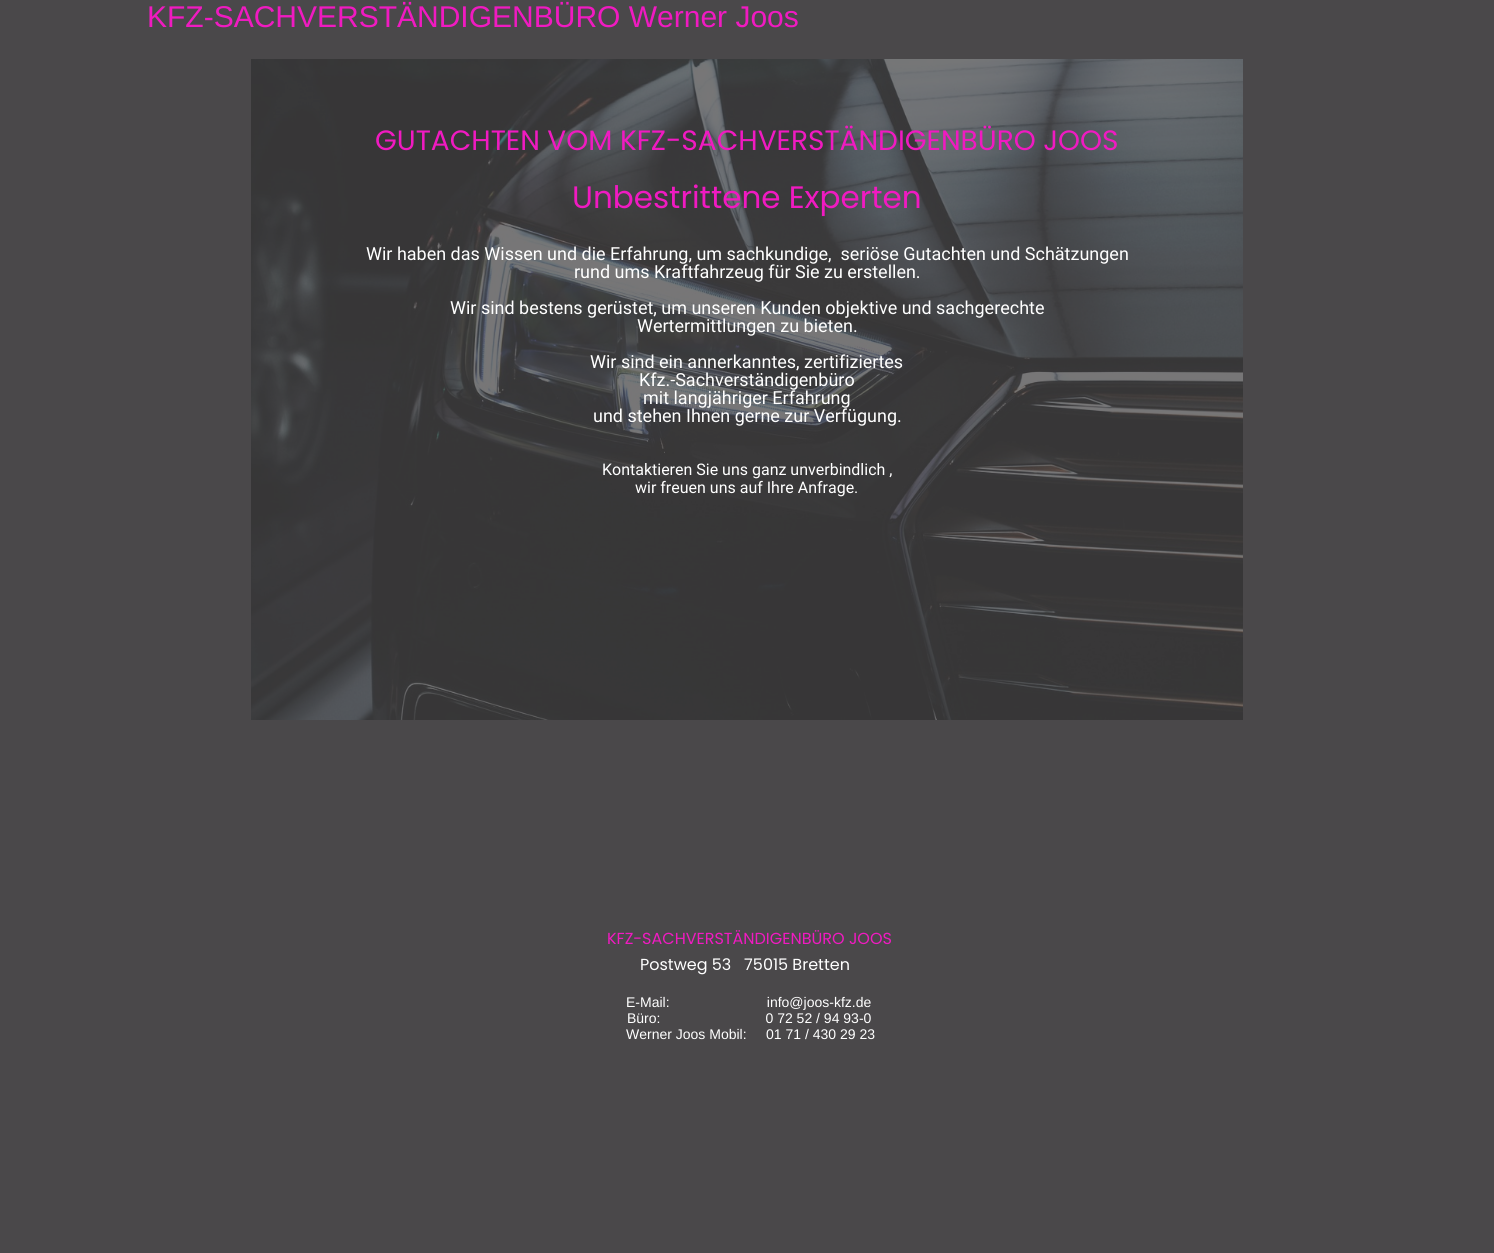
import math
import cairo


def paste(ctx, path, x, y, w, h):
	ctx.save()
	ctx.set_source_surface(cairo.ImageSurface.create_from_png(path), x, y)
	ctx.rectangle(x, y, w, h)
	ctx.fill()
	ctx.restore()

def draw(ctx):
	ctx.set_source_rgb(0.29, 0.282, 0.29)
	ctx.paint()
	ctx.select_font_face('Liberation Sans')
	ctx.set_font_size(30)
	ctx.set_source_rgb(0.941, 0.102, 0.757)
	ctx.move_to(147, 27)
	ctx.show_text('KFZ-SACHVERSTÄNDIGENBÜRO Werner Joos')
	paste(ctx, 'media/1.png', 251, 59, 992, 661)
	ctx.select_font_face('Poppins')
	ctx.set_font_size(28)
	ctx.move_to(375, 150)
	ctx.show_text('GUTACHTEN VOM KFZ-SACHVERSTÄNDIGENBÜRO JOOS')
	ctx.set_font_size(31)
	ctx.move_to(572, 208)
	ctx.show_text('Unbestrittene Experten')
	ctx.select_font_face('Roboto')
	ctx.set_font_size(18)
	ctx.set_source_rgb(1, 1, 1)
	for x, y, s in [
		(366, 260, 'Wir haben das Wissen und die Erfahrung, um sachkundige,  seriöse Gutachten und Schätzungen'),
		(574, 278, 'rund ums Kraftfahrzeug für Sie zu erstellen.'),
		(450, 314, 'Wir sind bestens gerüstet, um unseren Kunden objektive und sachgerechte'),
		(637, 332, 'Wertermittlungen zu bieten.'),
		(590, 368, 'Wir sind ein annerkanntes, zertifiziertes'),
		(639, 386, 'Kfz.-Sachverständigenbüro'),
		(643, 404, 'mit langjähriger Erfahrung'),
		(593, 422, 'und stehen Ihnen gerne zur Verfügung.'),
	]:
		ctx.move_to(x, y)
		ctx.show_text(s)
	ctx.set_font_size(16)
	ctx.move_to(602, 475)
	ctx.show_text('Kontaktieren Sie uns ganz unverbindlich ,')
	ctx.move_to(635, 493)
	ctx.show_text('wir freuen uns auf Ihre Anfrage.')
	ctx.select_font_face('Poppins')
	ctx.set_source_rgb(0.941, 0.102, 0.757)
	ctx.move_to(607, 944)
	ctx.show_text('KFZ-SACHVERSTÄNDIGENBÜRO JOOS')
	ctx.set_source_rgb(1, 1, 1)
	ctx.move_to(640, 970)
	ctx.show_text('Postweg 53   75015 Bretten')
	ctx.select_font_face('Liberation Sans')
	ctx.set_font_size(14)
	for x, y, s in [
		(626, 1007, 'E-Mail:                         info@joos-kfz.de'),
		(627, 1023, 'Büro:                           0 72 52 / 94 93-0'),
		(626, 1039, 'Werner Joos Mobil:     01 71 / 430 29 23'),
	]:
		ctx.move_to(x, y)
		ctx.show_text(s)


surface = cairo.ImageSurface(cairo.FORMAT_RGB24, 1494, 1253)
ctx = cairo.Context(surface)
options = cairo.FontOptions()
options.set_hint_metrics(cairo.HINT_METRICS_OFF)
options.set_hint_style(cairo.HINT_STYLE_NONE)
ctx.set_font_options(options)
ctx.set_miter_limit(4)
draw(ctx)
surface.write_to_png('image.png')
